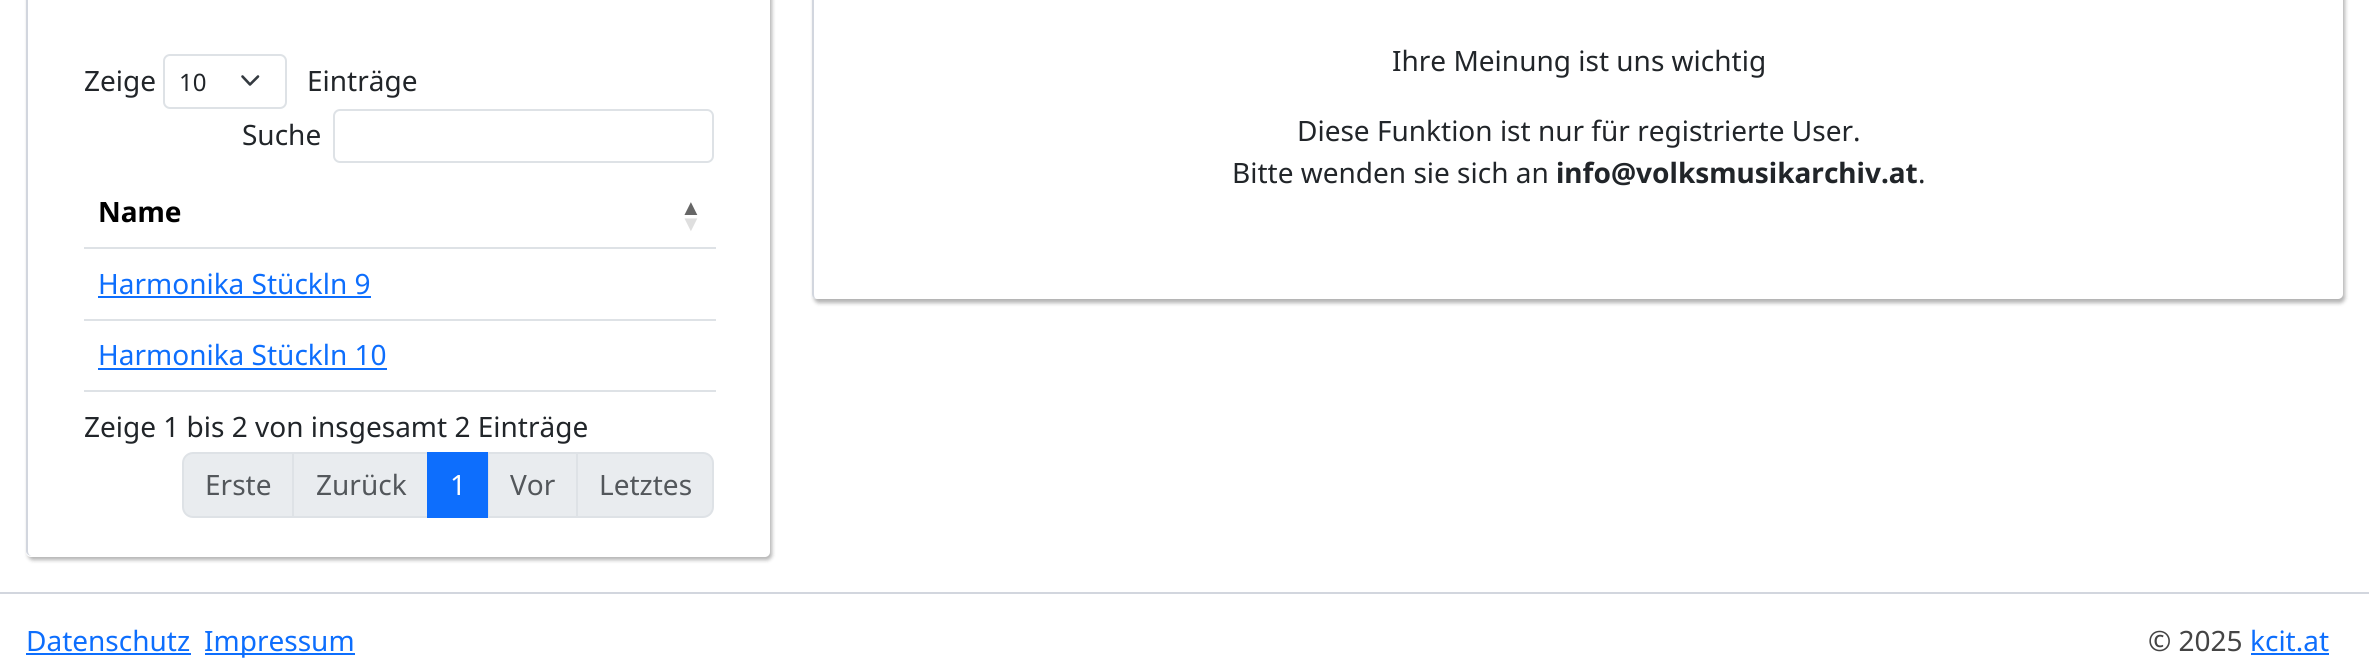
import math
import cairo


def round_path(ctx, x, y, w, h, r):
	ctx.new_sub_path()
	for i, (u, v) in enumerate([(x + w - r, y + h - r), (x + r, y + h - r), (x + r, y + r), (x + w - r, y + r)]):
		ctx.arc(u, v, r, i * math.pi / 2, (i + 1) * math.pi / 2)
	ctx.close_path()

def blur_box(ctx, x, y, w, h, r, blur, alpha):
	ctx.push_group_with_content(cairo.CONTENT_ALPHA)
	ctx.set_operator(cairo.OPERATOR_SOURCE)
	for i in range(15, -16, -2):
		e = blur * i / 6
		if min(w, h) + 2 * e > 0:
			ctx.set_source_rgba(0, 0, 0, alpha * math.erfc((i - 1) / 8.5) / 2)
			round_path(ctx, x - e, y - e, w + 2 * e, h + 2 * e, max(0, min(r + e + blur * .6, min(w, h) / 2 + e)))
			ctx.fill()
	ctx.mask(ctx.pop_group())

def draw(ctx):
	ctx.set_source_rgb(1, 1, 1)
	ctx.paint()
	ctx.set_source_rgb(0, 0, 0)
	blur_box(ctx, 28, -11, 744, 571, 5, 2, 0.3)
	ctx.set_source_rgb(1, 1, 1)
	round_path(ctx, 26, -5, 744, 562, 5)
	ctx.fill()
	ctx.set_source_rgb(0.824, 0.839, 0.871)
	ctx.set_fill_rule(cairo.FILL_RULE_EVEN_ODD)
	ctx.new_path()
	ctx.move_to(32, -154)
	ctx.line_to(765, -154)
	ctx.curve_to(768, -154, 770, -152, 770, -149)
	ctx.line_to(770, 551)
	ctx.curve_to(770, 554, 768, 556, 765, 556)
	ctx.line_to(32, 556)
	ctx.curve_to(29, 556, 26, 554, 26, 551)
	ctx.line_to(26, -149)
	ctx.curve_to(26, -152, 29, -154, 32, -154)
	ctx.close_path()
	ctx.move_to(32, -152)
	ctx.line_to(765, -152)
	ctx.curve_to(768, -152, 770, -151, 770, -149)
	ctx.line_to(770, 551)
	ctx.curve_to(770, 554, 768, 556, 765, 556)
	ctx.line_to(32, 556)
	ctx.curve_to(30, 556, 28, 554, 28, 551)
	ctx.line_to(28, -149)
	ctx.curve_to(28, -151, 30, -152, 32, -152)
	ctx.close_path()
	ctx.fill()
	ctx.select_font_face('Noto Sans')
	ctx.set_font_size(28)
	ctx.set_source_rgb(0.129, 0.145, 0.161)
	ctx.move_to(84, 91)
	ctx.show_text('Zeige')
	ctx.new_path()
	ctx.move_to(242.5, 76.5)
	ctx.line_to(250, 84.5)
	ctx.line_to(258, 76.5)
	ctx.set_source_rgb(0.204, 0.227, 0.251)
	ctx.set_line_width(2.6)
	ctx.set_line_cap(cairo.LINE_CAP_ROUND)
	ctx.set_line_join(cairo.LINE_JOIN_ROUND)
	ctx.stroke()
	round_path(ctx, 164, 55, 122, 53, 6)
	ctx.set_source_rgb(0.871, 0.886, 0.902)
	ctx.set_line_width(2)
	ctx.set_line_cap(cairo.LINE_CAP_BUTT)
	ctx.set_line_join(cairo.LINE_JOIN_MITER)
	ctx.stroke()
	ctx.set_font_size(24)
	ctx.set_source_rgb(0.129, 0.145, 0.161)
	ctx.move_to(179, 91)
	ctx.show_text('10')
	ctx.set_font_size(28)
	ctx.move_to(307, 91)
	ctx.show_text('Einträge')
	ctx.move_to(242, 145)
	ctx.show_text('Suche')
	round_path(ctx, 334, 110, 379, 52, 6)
	ctx.set_source_rgb(0.871, 0.886, 0.902)
	ctx.stroke()
	ctx.rectangle(84, 247, 632, 2)
	ctx.fill()
	ctx.select_font_face('Noto Sans', cairo.FONT_SLANT_NORMAL, cairo.FONT_WEIGHT_BOLD)
	ctx.set_source_rgb(0, 0, 0)
	ctx.move_to(98, 222)
	ctx.show_text('Name')
	ctx.select_font_face('Liberation Sans', cairo.FONT_SLANT_NORMAL, cairo.FONT_WEIGHT_BOLD)
	ctx.set_font_size(22)
	ctx.set_source_rgb(0.4, 0.4, 0.4)
	ctx.move_to(680, 215)
	ctx.show_text('▲')
	ctx.set_source_rgb(0.875, 0.875, 0.875)
	ctx.move_to(680, 231)
	ctx.show_text('▼')
	ctx.set_source_rgb(0.871, 0.886, 0.902)
	ctx.rectangle(84, 319, 632, 2)
	ctx.fill()
	ctx.select_font_face('Noto Sans')
	ctx.set_font_size(28)
	ctx.set_source_rgb(0.051, 0.431, 0.992)
	ctx.move_to(98, 294)
	ctx.show_text('Harmonika Stückln 9')
	ctx.rectangle(98, 296, 273, 2)
	ctx.fill()
	ctx.set_source_rgb(0.871, 0.886, 0.902)
	ctx.rectangle(84, 390, 632, 2)
	ctx.fill()
	ctx.set_source_rgb(0.051, 0.431, 0.992)
	ctx.move_to(98, 365)
	ctx.show_text('Harmonika Stückln 10')
	ctx.rectangle(98, 368, 289, 2)
	ctx.fill()
	ctx.set_source_rgb(0.129, 0.145, 0.161)
	ctx.move_to(84, 437)
	ctx.show_text('Zeige 1 bis 2 von insgesamt 2 Einträge')
	ctx.set_source_rgb(0.914, 0.925, 0.937)
	ctx.new_path()
	ctx.move_to(193, 453)
	ctx.line_to(293, 453)
	ctx.line_to(293, 517)
	ctx.line_to(193, 517)
	ctx.curve_to(187.5, 517, 183, 512.5, 183, 507)
	ctx.line_to(183, 463)
	ctx.curve_to(183, 457.5, 187.5, 453, 193, 453)
	ctx.close_path()
	ctx.fill_preserve()
	ctx.set_source_rgb(0.871, 0.886, 0.902)
	ctx.stroke()
	ctx.set_source_rgb(0.325, 0.341, 0.357)
	ctx.move_to(205, 495)
	ctx.show_text('Erste')
	ctx.set_source_rgb(0.914, 0.925, 0.937)
	ctx.rectangle(293, 453, 135, 64)
	ctx.fill_preserve()
	ctx.set_source_rgb(0.871, 0.886, 0.902)
	ctx.stroke()
	ctx.set_source_rgb(0.325, 0.341, 0.357)
	ctx.move_to(316, 495)
	ctx.show_text('Zurück')
	ctx.set_source_rgb(0.914, 0.925, 0.937)
	ctx.rectangle(488, 453, 89, 64)
	ctx.fill_preserve()
	ctx.set_source_rgb(0.871, 0.886, 0.902)
	ctx.stroke()
	ctx.set_source_rgb(0.051, 0.431, 0.992)
	ctx.rectangle(427, 452, 61, 66)
	ctx.fill()
	ctx.set_source_rgb(1, 1, 1)
	ctx.move_to(450, 495)
	ctx.show_text('1')
	ctx.set_source_rgb(0.325, 0.341, 0.357)
	ctx.move_to(510, 495)
	ctx.show_text('Vor')
	ctx.set_source_rgb(0.914, 0.925, 0.937)
	ctx.new_path()
	ctx.move_to(577, 453)
	ctx.line_to(703, 453)
	ctx.curve_to(708.5, 453, 713, 457.5, 713, 463)
	ctx.line_to(713, 507)
	ctx.curve_to(713, 512.5, 708.5, 517, 703, 517)
	ctx.line_to(577, 517)
	ctx.close_path()
	ctx.fill_preserve()
	ctx.set_source_rgb(0.871, 0.886, 0.902)
	ctx.stroke()
	ctx.set_source_rgb(0.325, 0.341, 0.357)
	ctx.move_to(599, 495)
	ctx.show_text('Letztes')
	ctx.set_source_rgb(0, 0, 0)
	blur_box(ctx, 814, -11, 1531, 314, 5, 2, 0.3)
	ctx.set_source_rgb(1, 1, 1)
	round_path(ctx, 812, -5, 1531, 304, 5)
	ctx.fill()
	ctx.set_source_rgb(0.824, 0.839, 0.871)
	ctx.new_path()
	ctx.move_to(817, -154)
	ctx.line_to(2338, -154)
	ctx.curve_to(2341, -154, 2343, -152, 2343, -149)
	ctx.line_to(2343, 294)
	ctx.curve_to(2343, 297, 2341, 299, 2338, 299)
	ctx.line_to(817, 299)
	ctx.curve_to(814, 299, 812, 297, 812, 294)
	ctx.line_to(812, -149)
	ctx.curve_to(812, -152, 814, -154, 817, -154)
	ctx.close_path()
	ctx.move_to(817, -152)
	ctx.line_to(2338, -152)
	ctx.curve_to(2341, -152, 2343, -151, 2343, -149)
	ctx.line_to(2343, 294)
	ctx.curve_to(2343, 297, 2341, 299, 2338, 299)
	ctx.line_to(817, 299)
	ctx.curve_to(815, 299, 814, 297, 814, 294)
	ctx.line_to(814, -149)
	ctx.curve_to(814, -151, 815, -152, 817, -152)
	ctx.close_path()
	ctx.fill()
	ctx.set_source_rgb(0.129, 0.145, 0.161)
	for x, y, s in [
		(1392, 71, 'Ihre Meinung ist uns wichtig'),
		(1297, 141, 'Diese Funktion ist nur für registrierte User.'),
		(1232, 183, 'Bitte wenden sie sich an'),
	]:
		ctx.move_to(x, y)
		ctx.show_text(s)
	ctx.select_font_face('Noto Sans', cairo.FONT_SLANT_NORMAL, cairo.FONT_WEIGHT_BOLD)
	ctx.move_to(1556, 183)
	ctx.show_text('info@volksmusikarchiv.at')
	ctx.select_font_face('Noto Sans')
	ctx.move_to(1918, 183)
	ctx.show_text('.')
	ctx.set_source_rgb(0.824, 0.839, 0.871)
	ctx.rectangle(0, 592, 2369, 2)
	ctx.fill()
	ctx.set_source_rgb(0.051, 0.431, 0.992)
	ctx.move_to(26, 651)
	ctx.show_text('Datenschutz')
	ctx.rectangle(26, 653, 165, 2)
	ctx.fill()
	ctx.rectangle(205, 653, 150, 2)
	ctx.fill()
	ctx.move_to(204, 651)
	ctx.show_text('Impressum')
	ctx.set_source_rgb(0.267, 0.267, 0.267)
	ctx.move_to(2148, 651)
	ctx.show_text('© 2025')
	ctx.set_source_rgb(0.051, 0.431, 0.992)
	ctx.move_to(2250, 651)
	ctx.show_text('kcit.at')
	ctx.rectangle(2251, 653, 78, 2)
	ctx.fill()


surface = cairo.ImageSurface(cairo.FORMAT_RGB24, 2369, 670)
ctx = cairo.Context(surface)
options = cairo.FontOptions()
options.set_hint_metrics(cairo.HINT_METRICS_OFF)
options.set_hint_style(cairo.HINT_STYLE_NONE)
ctx.set_font_options(options)
ctx.set_miter_limit(4)
draw(ctx)
surface.write_to_png('image.png')
